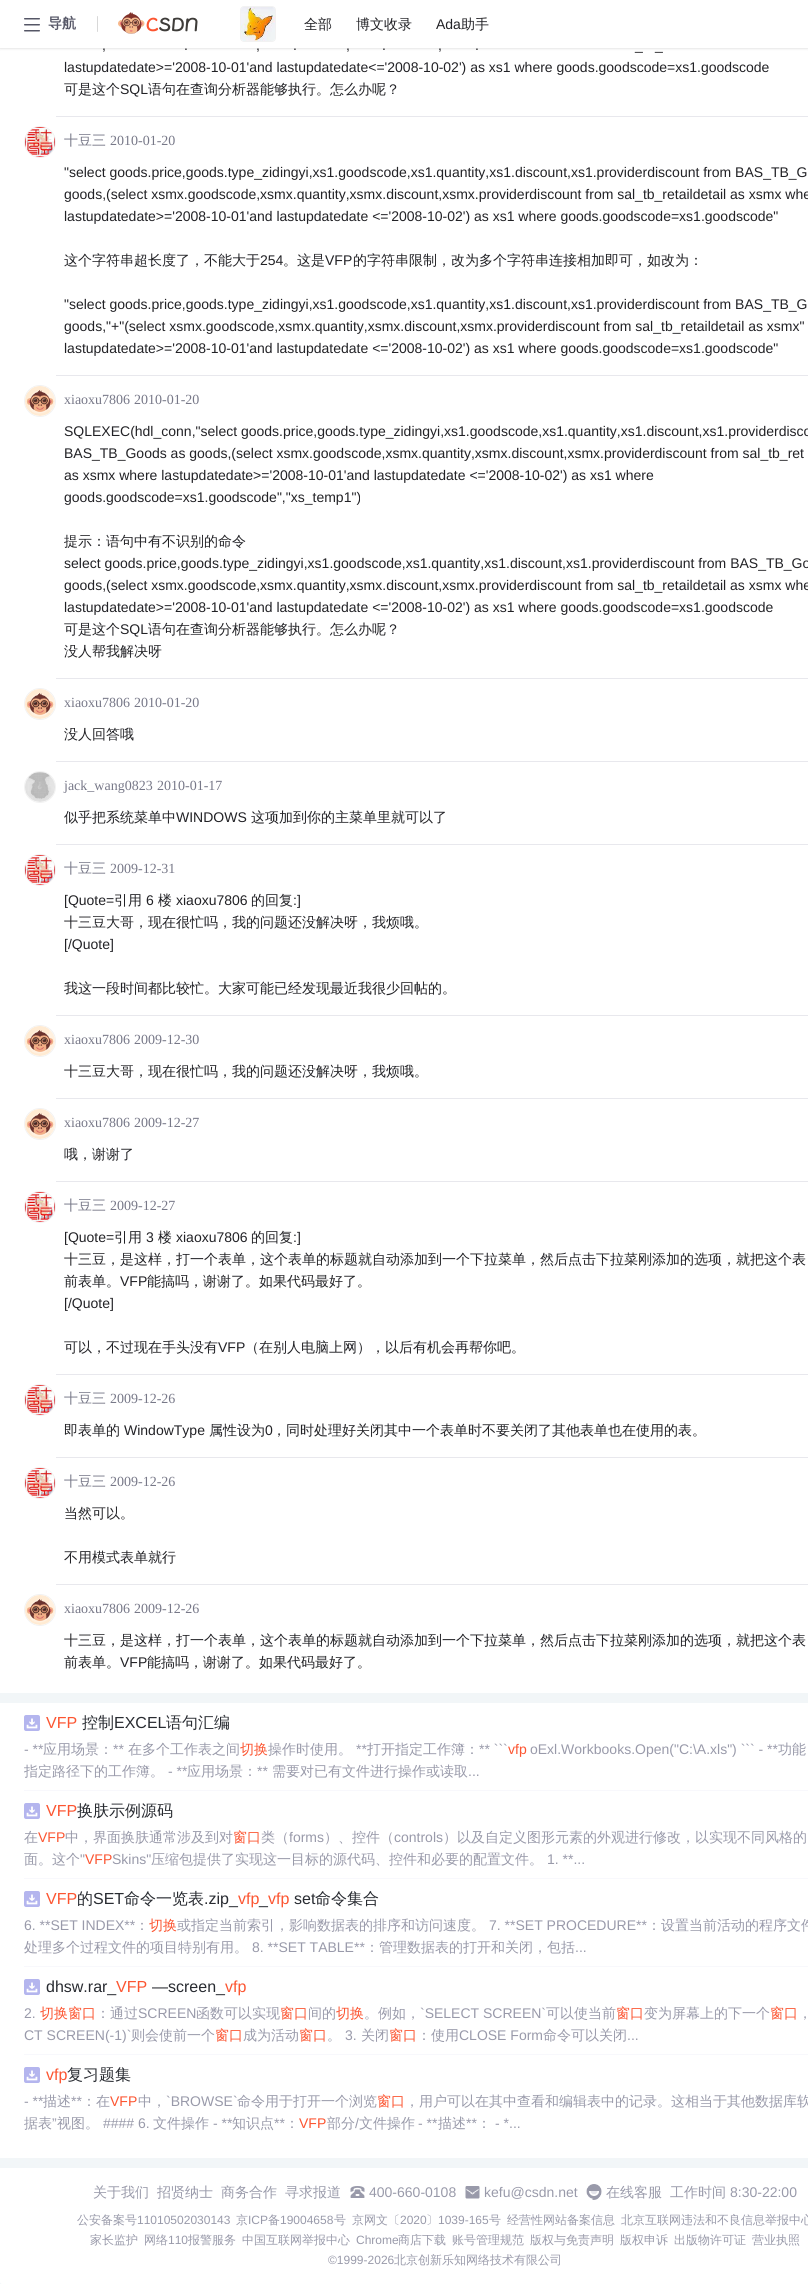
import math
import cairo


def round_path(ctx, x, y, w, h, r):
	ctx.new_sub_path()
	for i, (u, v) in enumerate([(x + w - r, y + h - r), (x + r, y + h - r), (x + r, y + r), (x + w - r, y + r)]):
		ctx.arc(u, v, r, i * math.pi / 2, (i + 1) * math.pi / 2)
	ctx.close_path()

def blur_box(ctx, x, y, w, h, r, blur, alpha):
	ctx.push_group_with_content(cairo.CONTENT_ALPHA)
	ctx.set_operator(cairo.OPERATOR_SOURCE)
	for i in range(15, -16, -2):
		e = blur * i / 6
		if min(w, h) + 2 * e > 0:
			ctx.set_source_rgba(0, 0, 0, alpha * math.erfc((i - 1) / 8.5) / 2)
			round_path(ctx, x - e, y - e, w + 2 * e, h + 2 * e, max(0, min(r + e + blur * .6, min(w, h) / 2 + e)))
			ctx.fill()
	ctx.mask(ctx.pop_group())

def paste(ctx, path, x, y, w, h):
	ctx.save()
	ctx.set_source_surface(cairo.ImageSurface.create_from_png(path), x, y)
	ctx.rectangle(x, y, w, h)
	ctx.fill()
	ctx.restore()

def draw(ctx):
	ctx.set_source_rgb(0.949, 0.961, 0.969)
	ctx.paint()
	ctx.set_source_rgb(1, 1, 1)
	ctx.rectangle(0, 48, 808, 1645)
	ctx.fill()
	ctx.set_source_rgb(0, 0, 0)
	blur_box(ctx, 0, 1, 808, 48, 0, 1, 0.1)
	ctx.set_source_rgb(1, 1, 1)
	ctx.rectangle(0, 0, 808, 48)
	ctx.fill()
	paste(ctx, 'media/1.png', 24, 18, 16, 14)
	ctx.select_font_face('WenQuanYi Zen Hei', cairo.FONT_SLANT_NORMAL, cairo.FONT_WEIGHT_BOLD)
	ctx.set_font_size(14)
	ctx.set_source_rgb(0.333, 0.337, 0.4)
	ctx.move_to(48, 28)
	ctx.show_text('导航')
	ctx.set_source_rgb(0.847, 0.847, 0.847)
	round_path(ctx, 97, 16, 1, 16, 0.5)
	ctx.fill()
	paste(ctx, 'media/2.png', 118, 12, 80, 22)
	round_path(ctx, 240.5, 6.5, 35, 35, 3.5)
	ctx.set_source_rgb(0.949, 0.949, 0.949)
	ctx.set_line_width(1)
	ctx.stroke()
	paste(ctx, 'media/3.png', 241, 7, 34, 34)
	ctx.select_font_face('WenQuanYi Zen Hei Medium')
	ctx.set_source_rgb(0.133, 0.133, 0.149)
	ctx.move_to(304, 29)
	ctx.show_text('全部')
	ctx.move_to(356, 29)
	ctx.show_text('博文收录')
	ctx.select_font_face('Liberation Sans')
	ctx.move_to(436, 29)
	ctx.show_text('Ada')
	ctx.select_font_face('WenQuanYi Zen Hei Medium')
	ctx.move_to(461, 29)
	ctx.show_text('助手')
	ctx.select_font_face('Liberation Sans')
	for x, y, s in [
		(102, 50, ','),
		(184, 50, '.'),
		(256, 50, ','),
		(293, 50, '.'),
		(346, 50, ','),
		(382, 50, '.'),
		(438, 50, ','),
		(475, 50, '.'),
		(635, 50, '_'),
		(655, 50, '_'),
		(64, 72, 'lastupdatedate>=\'2008-10-01\'and lastupdatedate<=\'2008-10-02\') as xs1 where goods.goodscode=xs1.goodscode'),
	]:
		ctx.move_to(x, y)
		ctx.show_text(s)
	ctx.select_font_face('WenQuanYi Zen Hei Medium')
	ctx.move_to(64, 94)
	ctx.show_text('可是这个')
	ctx.select_font_face('Liberation Sans')
	ctx.move_to(120, 94)
	ctx.show_text('SQL')
	ctx.select_font_face('WenQuanYi Zen Hei Medium')
	ctx.move_to(148, 94)
	ctx.show_text('语句在查询分析器能够执行。怎么办呢？')
	ctx.set_source_rgb(0.91, 0.91, 0.929)
	ctx.rectangle(56, 116, 752, 1)
	ctx.fill()
	ctx.arc(40, 142, 15.5, 0, 2 * math.pi)
	ctx.set_source_rgb(0.949, 0.949, 0.949)
	ctx.stroke()
	paste(ctx, 'media/4.png', 25, 127, 30, 30)
	ctx.set_source_rgb(0.467, 0.471, 0.533)
	ctx.move_to(64, 145)
	ctx.show_text('十豆三')
	ctx.select_font_face('Liberation Serif')
	ctx.move_to(110, 145)
	ctx.show_text('2010-01-20')
	ctx.select_font_face('Liberation Sans')
	ctx.set_source_rgb(0.133, 0.133, 0.149)
	for x, y, s in [
		(64, 177, '"select goods.price,goods.type_zidingyi,xs1.goodscode,xs1.quantity,xs1.discount,xs1.providerdiscount from BAS_TB_G'),
		(64, 199, 'goods,(select xsmx.goodscode,xsmx.quantity,xsmx.discount,xsmx.providerdiscount from sal_tb_retaildetail as xsmx whe'),
		(64, 221, 'lastupdatedate>=\'2008-10-01\'and lastupdatedate <=\'2008-10-02\') as xs1 where goods.goodscode=xs1.goodscode"'),
	]:
		ctx.move_to(x, y)
		ctx.show_text(s)
	ctx.select_font_face('WenQuanYi Zen Hei Medium')
	ctx.move_to(64, 265)
	ctx.show_text('这个字符串超长度了，不能大于')
	ctx.select_font_face('Liberation Sans')
	ctx.move_to(260, 265)
	ctx.show_text('254')
	ctx.select_font_face('WenQuanYi Zen Hei Medium')
	ctx.move_to(283, 265)
	ctx.show_text('。这是')
	ctx.select_font_face('Liberation Sans')
	ctx.move_to(325, 265)
	ctx.show_text('VFP')
	ctx.select_font_face('WenQuanYi Zen Hei Medium')
	ctx.move_to(353, 265)
	ctx.show_text('的字符串限制，改为多个字符串连接相加即可，如改为：')
	ctx.select_font_face('Liberation Sans')
	for x, y, s in [
		(64, 309, '"select goods.price,goods.type_zidingyi,xs1.goodscode,xs1.quantity,xs1.discount,xs1.providerdiscount from BAS_TB_G'),
		(64, 331, 'goods,"+"(select xsmx.goodscode,xsmx.quantity,xsmx.discount,xsmx.providerdiscount from sal_tb_retaildetail as xsmx"'),
		(64, 353, 'lastupdatedate>=\'2008-10-01\'and lastupdatedate <=\'2008-10-02\') as xs1 where goods.goodscode=xs1.goodscode"'),
	]:
		ctx.move_to(x, y)
		ctx.show_text(s)
	ctx.set_source_rgb(0.91, 0.91, 0.929)
	ctx.rectangle(56, 375, 752, 1)
	ctx.fill()
	ctx.arc(40, 401, 15.5, 0, 2 * math.pi)
	ctx.set_source_rgb(0.949, 0.949, 0.949)
	ctx.stroke()
	paste(ctx, 'media/5.png', 25, 386, 30, 30)
	ctx.select_font_face('Liberation Serif')
	ctx.set_source_rgb(0.467, 0.471, 0.533)
	ctx.move_to(64, 404)
	ctx.show_text('xiaoxu7806')
	ctx.move_to(134, 404)
	ctx.show_text('2010-01-20')
	ctx.select_font_face('Liberation Sans')
	ctx.set_source_rgb(0.133, 0.133, 0.149)
	for x, y, s in [
		(64, 436, 'SQLEXEC(hdl_conn,"select goods.price,goods.type_zidingyi,xs1.goodscode,xs1.quantity,xs1.discount,xs1.providerdisco'),
		(64, 458, 'BAS_TB_Goods as goods,(select xsmx.goodscode,xsmx.quantity,xsmx.discount,xsmx.providerdiscount from sal_tb_ret'),
		(64, 480, 'as xsmx where lastupdatedate>=\'2008-10-01\'and lastupdatedate <=\'2008-10-02\') as xs1 where'),
		(64, 502, 'goods.goodscode=xs1.goodscode","xs_temp1")'),
	]:
		ctx.move_to(x, y)
		ctx.show_text(s)
	ctx.select_font_face('WenQuanYi Zen Hei Medium')
	ctx.move_to(64, 546)
	ctx.show_text('提示：语句中有不识别的命令')
	ctx.select_font_face('Liberation Sans')
	for x, y, s in [
		(64, 568, 'select goods.price,goods.type_zidingyi,xs1.goodscode,xs1.quantity,xs1.discount,xs1.providerdiscount from BAS_TB_Go'),
		(64, 590, 'goods,(select xsmx.goodscode,xsmx.quantity,xsmx.discount,xsmx.providerdiscount from sal_tb_retaildetail as xsmx whe'),
		(64, 612, 'lastupdatedate>=\'2008-10-01\'and lastupdatedate <=\'2008-10-02\') as xs1 where goods.goodscode=xs1.goodscode'),
	]:
		ctx.move_to(x, y)
		ctx.show_text(s)
	ctx.select_font_face('WenQuanYi Zen Hei Medium')
	ctx.move_to(64, 634)
	ctx.show_text('可是这个')
	ctx.select_font_face('Liberation Sans')
	ctx.move_to(120, 634)
	ctx.show_text('SQL')
	ctx.select_font_face('WenQuanYi Zen Hei Medium')
	ctx.move_to(148, 634)
	ctx.show_text('语句在查询分析器能够执行。怎么办呢？')
	ctx.move_to(64, 656)
	ctx.show_text('没人帮我解决呀')
	ctx.set_source_rgb(0.91, 0.91, 0.929)
	ctx.rectangle(56, 678, 752, 1)
	ctx.fill()
	ctx.arc(40, 704, 15.5, 0, 2 * math.pi)
	ctx.set_source_rgb(0.949, 0.949, 0.949)
	ctx.stroke()
	paste(ctx, 'media/5.png', 25, 689, 30, 30)
	ctx.select_font_face('Liberation Serif')
	ctx.set_source_rgb(0.467, 0.471, 0.533)
	ctx.move_to(64, 707)
	ctx.show_text('xiaoxu7806')
	ctx.move_to(134, 707)
	ctx.show_text('2010-01-20')
	ctx.select_font_face('WenQuanYi Zen Hei Medium')
	ctx.set_source_rgb(0.133, 0.133, 0.149)
	ctx.move_to(64, 739)
	ctx.show_text('没人回答哦')
	ctx.set_source_rgb(0.91, 0.91, 0.929)
	ctx.rectangle(56, 761, 752, 1)
	ctx.fill()
	ctx.arc(40, 787, 15.5, 0, 2 * math.pi)
	ctx.set_source_rgb(0.949, 0.949, 0.949)
	ctx.stroke()
	paste(ctx, 'media/6.png', 25, 772, 30, 30)
	ctx.select_font_face('Liberation Serif')
	ctx.set_source_rgb(0.467, 0.471, 0.533)
	ctx.move_to(64, 790)
	ctx.show_text('jack_wang0823')
	ctx.move_to(157, 790)
	ctx.show_text('2010-01-17')
	ctx.select_font_face('WenQuanYi Zen Hei Medium')
	ctx.set_source_rgb(0.133, 0.133, 0.149)
	ctx.move_to(64, 822)
	ctx.show_text('似乎把系统菜单中')
	ctx.select_font_face('Liberation Sans')
	ctx.move_to(176, 822)
	ctx.show_text('WINDOWS')
	ctx.select_font_face('WenQuanYi Zen Hei Medium')
	ctx.move_to(251, 822)
	ctx.show_text('这项加到你的主菜单里就可以了')
	ctx.set_source_rgb(0.91, 0.91, 0.929)
	ctx.rectangle(56, 844, 752, 1)
	ctx.fill()
	ctx.arc(40, 870, 15.5, 0, 2 * math.pi)
	ctx.set_source_rgb(0.949, 0.949, 0.949)
	ctx.stroke()
	paste(ctx, 'media/7.png', 25, 855, 30, 30)
	ctx.set_source_rgb(0.467, 0.471, 0.533)
	ctx.move_to(64, 873)
	ctx.show_text('十豆三')
	ctx.select_font_face('Liberation Serif')
	ctx.move_to(110, 873)
	ctx.show_text('2009-12-31')
	ctx.select_font_face('Liberation Sans')
	ctx.set_source_rgb(0.133, 0.133, 0.149)
	ctx.move_to(64, 905)
	ctx.show_text('[Quote=')
	ctx.select_font_face('WenQuanYi Zen Hei Medium')
	ctx.move_to(114, 905)
	ctx.show_text('引用')
	ctx.select_font_face('Liberation Sans')
	ctx.move_to(146, 905)
	ctx.show_text('6')
	ctx.select_font_face('WenQuanYi Zen Hei Medium')
	ctx.move_to(158, 905)
	ctx.show_text('楼')
	ctx.select_font_face('Liberation Sans')
	ctx.move_to(176, 905)
	ctx.show_text('xiaoxu7806')
	ctx.select_font_face('WenQuanYi Zen Hei Medium')
	ctx.move_to(251, 905)
	ctx.show_text('的回复')
	ctx.select_font_face('Liberation Sans')
	ctx.move_to(293, 905)
	ctx.show_text(':]')
	ctx.select_font_face('WenQuanYi Zen Hei Medium')
	ctx.move_to(64, 927)
	ctx.show_text('十三豆大哥，现在很忙吗，我的问题还没解决呀，我烦哦。')
	ctx.select_font_face('Liberation Sans')
	ctx.move_to(64, 949)
	ctx.show_text('[/Quote]')
	ctx.select_font_face('WenQuanYi Zen Hei Medium')
	ctx.move_to(64, 993)
	ctx.show_text('我这一段时间都比较忙。大家可能已经发现最近我很少回帖的。')
	ctx.set_source_rgb(0.91, 0.91, 0.929)
	ctx.rectangle(56, 1015, 752, 1)
	ctx.fill()
	ctx.arc(40, 1041, 15.5, 0, 2 * math.pi)
	ctx.set_source_rgb(0.949, 0.949, 0.949)
	ctx.stroke()
	paste(ctx, 'media/8.png', 25, 1026, 30, 30)
	ctx.select_font_face('Liberation Serif')
	ctx.set_source_rgb(0.467, 0.471, 0.533)
	ctx.move_to(64, 1044)
	ctx.show_text('xiaoxu7806')
	ctx.move_to(134, 1044)
	ctx.show_text('2009-12-30')
	ctx.select_font_face('WenQuanYi Zen Hei Medium')
	ctx.set_source_rgb(0.133, 0.133, 0.149)
	ctx.move_to(64, 1076)
	ctx.show_text('十三豆大哥，现在很忙吗，我的问题还没解决呀，我烦哦。')
	ctx.set_source_rgb(0.91, 0.91, 0.929)
	ctx.rectangle(56, 1098, 752, 1)
	ctx.fill()
	ctx.arc(40, 1124, 15.5, 0, 2 * math.pi)
	ctx.set_source_rgb(0.949, 0.949, 0.949)
	ctx.stroke()
	paste(ctx, 'media/9.png', 25, 1109, 30, 30)
	ctx.select_font_face('Liberation Serif')
	ctx.set_source_rgb(0.467, 0.471, 0.533)
	ctx.move_to(64, 1127)
	ctx.show_text('xiaoxu7806')
	ctx.move_to(134, 1127)
	ctx.show_text('2009-12-27')
	ctx.select_font_face('WenQuanYi Zen Hei Medium')
	ctx.set_source_rgb(0.133, 0.133, 0.149)
	ctx.move_to(64, 1159)
	ctx.show_text('哦，谢谢了')
	ctx.set_source_rgb(0.91, 0.91, 0.929)
	ctx.rectangle(56, 1181, 752, 1)
	ctx.fill()
	ctx.arc(40, 1207, 15.5, 0, 2 * math.pi)
	ctx.set_source_rgb(0.949, 0.949, 0.949)
	ctx.stroke()
	paste(ctx, 'media/4.png', 25, 1192, 30, 30)
	ctx.set_source_rgb(0.467, 0.471, 0.533)
	ctx.move_to(64, 1210)
	ctx.show_text('十豆三')
	ctx.select_font_face('Liberation Serif')
	ctx.move_to(110, 1210)
	ctx.show_text('2009-12-27')
	ctx.select_font_face('Liberation Sans')
	ctx.set_source_rgb(0.133, 0.133, 0.149)
	ctx.move_to(64, 1242)
	ctx.show_text('[Quote=')
	ctx.select_font_face('WenQuanYi Zen Hei Medium')
	ctx.move_to(114, 1242)
	ctx.show_text('引用')
	ctx.select_font_face('Liberation Sans')
	ctx.move_to(146, 1242)
	ctx.show_text('3')
	ctx.select_font_face('WenQuanYi Zen Hei Medium')
	ctx.move_to(158, 1242)
	ctx.show_text('楼')
	ctx.select_font_face('Liberation Sans')
	ctx.move_to(176, 1242)
	ctx.show_text('xiaoxu7806')
	ctx.select_font_face('WenQuanYi Zen Hei Medium')
	ctx.move_to(251, 1242)
	ctx.show_text('的回复')
	ctx.select_font_face('Liberation Sans')
	ctx.move_to(293, 1242)
	ctx.show_text(':]')
	ctx.select_font_face('WenQuanYi Zen Hei Medium')
	ctx.move_to(64, 1264)
	ctx.show_text('十三豆，是这样，打一个表单，这个表单的标题就自动添加到一个下拉菜单，然后点击下拉菜刚添加的选项，就把这个表')
	ctx.move_to(64, 1286)
	ctx.show_text('前表单。')
	ctx.select_font_face('Liberation Sans')
	ctx.move_to(120, 1286)
	ctx.show_text('VFP')
	ctx.select_font_face('WenQuanYi Zen Hei Medium')
	ctx.move_to(147, 1286)
	ctx.show_text('能搞吗，谢谢了。如果代码最好了。')
	ctx.select_font_face('Liberation Sans')
	ctx.move_to(64, 1308)
	ctx.show_text('[/Quote]')
	ctx.select_font_face('WenQuanYi Zen Hei Medium')
	ctx.move_to(64, 1352)
	ctx.show_text('可以，不过现在手头没有')
	ctx.select_font_face('Liberation Sans')
	ctx.move_to(218, 1352)
	ctx.show_text('VFP')
	ctx.select_font_face('WenQuanYi Zen Hei Medium')
	ctx.move_to(245, 1352)
	ctx.show_text('（在别人电脑上网），以后有机会再帮你吧。')
	ctx.set_source_rgb(0.91, 0.91, 0.929)
	ctx.rectangle(56, 1374, 752, 1)
	ctx.fill()
	ctx.arc(40, 1400, 15.5, 0, 2 * math.pi)
	ctx.set_source_rgb(0.949, 0.949, 0.949)
	ctx.stroke()
	paste(ctx, 'media/4.png', 25, 1385, 30, 30)
	ctx.set_source_rgb(0.467, 0.471, 0.533)
	ctx.move_to(64, 1403)
	ctx.show_text('十豆三')
	ctx.select_font_face('Liberation Serif')
	ctx.move_to(110, 1403)
	ctx.show_text('2009-12-26')
	ctx.select_font_face('WenQuanYi Zen Hei Medium')
	ctx.set_source_rgb(0.133, 0.133, 0.149)
	ctx.move_to(64, 1435)
	ctx.show_text('即表单的')
	ctx.select_font_face('Liberation Sans')
	ctx.move_to(124, 1435)
	ctx.show_text('WindowType')
	ctx.select_font_face('WenQuanYi Zen Hei Medium')
	ctx.move_to(209, 1435)
	ctx.show_text('属性设为')
	ctx.select_font_face('Liberation Sans')
	ctx.move_to(265, 1435)
	ctx.show_text('0')
	ctx.select_font_face('WenQuanYi Zen Hei Medium')
	ctx.move_to(272, 1435)
	ctx.show_text('，同时处理好关闭其中一个表单时不要关闭了其他表单也在使用的表。')
	ctx.set_source_rgb(0.91, 0.91, 0.929)
	ctx.rectangle(56, 1457, 752, 1)
	ctx.fill()
	ctx.arc(40, 1483, 15.5, 0, 2 * math.pi)
	ctx.set_source_rgb(0.949, 0.949, 0.949)
	ctx.stroke()
	paste(ctx, 'media/4.png', 25, 1468, 30, 30)
	ctx.set_source_rgb(0.467, 0.471, 0.533)
	ctx.move_to(64, 1486)
	ctx.show_text('十豆三')
	ctx.select_font_face('Liberation Serif')
	ctx.move_to(110, 1486)
	ctx.show_text('2009-12-26')
	ctx.select_font_face('WenQuanYi Zen Hei Medium')
	ctx.set_source_rgb(0.133, 0.133, 0.149)
	ctx.move_to(64, 1518)
	ctx.show_text('当然可以。')
	ctx.move_to(64, 1562)
	ctx.show_text('不用模式表单就行')
	ctx.set_source_rgb(0.91, 0.91, 0.929)
	ctx.rectangle(56, 1584, 752, 1)
	ctx.fill()
	ctx.arc(40, 1610, 15.5, 0, 2 * math.pi)
	ctx.set_source_rgb(0.949, 0.949, 0.949)
	ctx.stroke()
	paste(ctx, 'media/5.png', 25, 1595, 30, 30)
	ctx.select_font_face('Liberation Serif')
	ctx.set_source_rgb(0.467, 0.471, 0.533)
	ctx.move_to(64, 1613)
	ctx.show_text('xiaoxu7806')
	ctx.move_to(134, 1613)
	ctx.show_text('2009-12-26')
	ctx.select_font_face('WenQuanYi Zen Hei Medium')
	ctx.set_source_rgb(0.133, 0.133, 0.149)
	ctx.move_to(64, 1645)
	ctx.show_text('十三豆，是这样，打一个表单，这个表单的标题就自动添加到一个下拉菜单，然后点击下拉菜刚添加的选项，就把这个表')
	ctx.move_to(64, 1667)
	ctx.show_text('前表单。')
	ctx.select_font_face('Liberation Sans')
	ctx.move_to(120, 1667)
	ctx.show_text('VFP')
	ctx.select_font_face('WenQuanYi Zen Hei Medium')
	ctx.move_to(147, 1667)
	ctx.show_text('能搞吗，谢谢了。如果代码最好了。')
	ctx.set_source_rgb(1, 1, 1)
	ctx.rectangle(0, 1703, 808, 455)
	ctx.fill()
	ctx.set_source_rgb(0.969, 0.969, 0.988)
	ctx.rectangle(24, 1790, 784, 1)
	ctx.fill()
	paste(ctx, 'media/10.png', 24, 1715, 16, 16)
	ctx.select_font_face('Liberation Sans')
	ctx.set_font_size(16)
	ctx.set_source_rgb(0.988, 0.333, 0.192)
	ctx.move_to(46, 1728)
	ctx.show_text('VFP')
	ctx.select_font_face('WenQuanYi Zen Hei Medium')
	ctx.set_source_rgb(0.157, 0.169, 0.192)
	ctx.move_to(82, 1728)
	ctx.show_text('控制')
	ctx.select_font_face('Liberation Sans')
	ctx.move_to(114, 1728)
	ctx.show_text('EXCEL')
	ctx.select_font_face('WenQuanYi Zen Hei Medium')
	ctx.move_to(166, 1728)
	ctx.show_text('语句汇编')
	ctx.select_font_face('Liberation Sans')
	ctx.set_font_size(14)
	ctx.set_source_rgb(0.6, 0.604, 0.667)
	ctx.move_to(24, 1754)
	ctx.show_text('- **')
	ctx.select_font_face('WenQuanYi Zen Hei Medium')
	ctx.move_to(43, 1754)
	ctx.show_text('应用场景：')
	ctx.select_font_face('Liberation Sans')
	ctx.move_to(113, 1754)
	ctx.show_text('**')
	ctx.select_font_face('WenQuanYi Zen Hei Medium')
	ctx.move_to(128, 1754)
	ctx.show_text('在多个工作表之间')
	ctx.set_source_rgb(0.988, 0.333, 0.192)
	ctx.move_to(240, 1754)
	ctx.show_text('切换')
	ctx.set_source_rgb(0.6, 0.604, 0.667)
	ctx.move_to(268, 1754)
	ctx.show_text('操作时使用。')
	ctx.select_font_face('Liberation Sans')
	ctx.move_to(356, 1754)
	ctx.show_text('**')
	ctx.select_font_face('WenQuanYi Zen Hei Medium')
	ctx.move_to(367, 1754)
	ctx.show_text('打开指定工作簿：')
	ctx.select_font_face('Liberation Sans')
	ctx.move_to(479, 1754)
	ctx.show_text('** ```')
	ctx.set_source_rgb(0.988, 0.333, 0.192)
	ctx.move_to(508, 1754)
	ctx.show_text('vfp')
	ctx.set_source_rgb(0.6, 0.604, 0.667)
	ctx.move_to(530, 1754)
	ctx.show_text('oExl.Workbooks.Open("C:\\A.xls") ``` - **')
	ctx.select_font_face('WenQuanYi Zen Hei Medium')
	ctx.move_to(778, 1754)
	ctx.show_text('功能')
	ctx.move_to(24, 1776)
	ctx.show_text('指定路径下的工作簿。')
	ctx.select_font_face('Liberation Sans')
	ctx.move_to(168, 1776)
	ctx.show_text('- **')
	ctx.select_font_face('WenQuanYi Zen Hei Medium')
	ctx.move_to(187, 1776)
	ctx.show_text('应用场景：')
	ctx.select_font_face('Liberation Sans')
	ctx.move_to(257, 1776)
	ctx.show_text('**')
	ctx.select_font_face('WenQuanYi Zen Hei Medium')
	ctx.move_to(272, 1776)
	ctx.show_text('需要对已有文件进行操作或读取')
	ctx.select_font_face('Liberation Sans')
	ctx.move_to(468, 1776)
	ctx.show_text('...')
	ctx.set_source_rgb(0.969, 0.969, 0.988)
	ctx.rectangle(24, 1878, 784, 1)
	ctx.fill()
	paste(ctx, 'media/10.png', 24, 1803, 16, 16)
	ctx.set_font_size(16)
	ctx.set_source_rgb(0.988, 0.333, 0.192)
	ctx.move_to(46, 1816)
	ctx.show_text('VFP')
	ctx.select_font_face('WenQuanYi Zen Hei Medium')
	ctx.set_source_rgb(0.157, 0.169, 0.192)
	ctx.move_to(77, 1816)
	ctx.show_text('换肤示例源码')
	ctx.set_font_size(14)
	ctx.set_source_rgb(0.6, 0.604, 0.667)
	ctx.move_to(24, 1842)
	ctx.show_text('在')
	ctx.select_font_face('Liberation Sans')
	ctx.set_source_rgb(0.988, 0.333, 0.192)
	ctx.move_to(38, 1842)
	ctx.show_text('VFP')
	ctx.select_font_face('WenQuanYi Zen Hei Medium')
	ctx.set_source_rgb(0.6, 0.604, 0.667)
	ctx.move_to(65, 1842)
	ctx.show_text('中，界面换肤通常涉及到对')
	ctx.set_source_rgb(0.988, 0.333, 0.192)
	ctx.move_to(233, 1842)
	ctx.show_text('窗口')
	ctx.set_source_rgb(0.6, 0.604, 0.667)
	ctx.move_to(261, 1842)
	ctx.show_text('类（')
	ctx.select_font_face('Liberation Sans')
	ctx.move_to(289, 1842)
	ctx.show_text('forms')
	ctx.select_font_face('WenQuanYi Zen Hei Medium')
	ctx.move_to(324, 1842)
	ctx.show_text('）、控件（')
	ctx.select_font_face('Liberation Sans')
	ctx.move_to(394, 1842)
	ctx.show_text('controls')
	ctx.select_font_face('WenQuanYi Zen Hei Medium')
	ctx.move_to(443, 1842)
	ctx.show_text('）以及自定义图形元素的外观进行修改，以实现不同风格的')
	ctx.move_to(24, 1864)
	ctx.show_text('面。这个')
	ctx.select_font_face('Liberation Sans')
	ctx.move_to(80, 1864)
	ctx.show_text('"')
	ctx.set_source_rgb(0.988, 0.333, 0.192)
	ctx.move_to(85, 1864)
	ctx.show_text('VFP')
	ctx.set_source_rgb(0.6, 0.604, 0.667)
	ctx.move_to(112, 1864)
	ctx.show_text('Skins"')
	ctx.select_font_face('WenQuanYi Zen Hei Medium')
	ctx.move_to(151, 1864)
	ctx.show_text('压缩包提供了实现这一目标的源代码、控件和必要的配置文件。')
	ctx.select_font_face('Liberation Sans')
	ctx.move_to(547, 1864)
	ctx.show_text('1. **...')
	ctx.set_source_rgb(0.969, 0.969, 0.988)
	ctx.rectangle(24, 1966, 784, 1)
	ctx.fill()
	paste(ctx, 'media/10.png', 24, 1891, 16, 16)
	ctx.set_font_size(16)
	ctx.set_source_rgb(0.988, 0.333, 0.192)
	ctx.move_to(46, 1904)
	ctx.show_text('VFP')
	ctx.select_font_face('WenQuanYi Zen Hei Medium')
	ctx.set_source_rgb(0.157, 0.169, 0.192)
	ctx.move_to(77, 1904)
	ctx.show_text('的')
	ctx.select_font_face('Liberation Sans')
	ctx.move_to(93, 1904)
	ctx.show_text('SET')
	ctx.select_font_face('WenQuanYi Zen Hei Medium')
	ctx.move_to(124, 1904)
	ctx.show_text('命令一览表')
	ctx.select_font_face('Liberation Sans')
	ctx.move_to(204, 1904)
	ctx.show_text('.zip_')
	ctx.set_source_rgb(0.988, 0.333, 0.192)
	ctx.move_to(238, 1904)
	ctx.show_text('vfp')
	ctx.set_source_rgb(0.157, 0.169, 0.192)
	ctx.move_to(259, 1904)
	ctx.show_text('_')
	ctx.set_source_rgb(0.988, 0.333, 0.192)
	ctx.move_to(268, 1904)
	ctx.show_text('vfp')
	ctx.set_source_rgb(0.157, 0.169, 0.192)
	ctx.move_to(294, 1904)
	ctx.show_text('set')
	ctx.select_font_face('WenQuanYi Zen Hei Medium')
	ctx.move_to(315, 1904)
	ctx.show_text('命令集合')
	ctx.select_font_face('Liberation Sans')
	ctx.set_font_size(14)
	ctx.set_source_rgb(0.6, 0.604, 0.667)
	ctx.move_to(24, 1930)
	ctx.show_text('6. **SET INDEX**')
	ctx.select_font_face('WenQuanYi Zen Hei Medium')
	ctx.move_to(135, 1930)
	ctx.show_text('：')
	ctx.set_source_rgb(0.988, 0.333, 0.192)
	ctx.move_to(149, 1930)
	ctx.show_text('切换')
	ctx.set_source_rgb(0.6, 0.604, 0.667)
	ctx.move_to(177, 1930)
	ctx.show_text('或指定当前索引，影响数据表的排序和访问速度。')
	ctx.select_font_face('Liberation Sans')
	ctx.move_to(489, 1930)
	ctx.show_text('7. **SET PROCEDURE**')
	ctx.select_font_face('WenQuanYi Zen Hei Medium')
	ctx.move_to(647, 1930)
	ctx.show_text('：设置当前活动的程序文件')
	ctx.move_to(24, 1952)
	ctx.show_text('处理多个过程文件的项目特别有用。')
	ctx.select_font_face('Liberation Sans')
	ctx.move_to(252, 1952)
	ctx.show_text('8. **SET TABLE**')
	ctx.select_font_face('WenQuanYi Zen Hei Medium')
	ctx.move_to(365, 1952)
	ctx.show_text('：管理数据表的打开和关闭，包括')
	ctx.select_font_face('Liberation Sans')
	ctx.move_to(575, 1952)
	ctx.show_text('...')
	ctx.set_source_rgb(0.969, 0.969, 0.988)
	ctx.rectangle(24, 2054, 784, 1)
	ctx.fill()
	paste(ctx, 'media/10.png', 24, 1979, 16, 16)
	ctx.set_font_size(16)
	ctx.set_source_rgb(0.157, 0.169, 0.192)
	ctx.move_to(46, 1992)
	ctx.show_text('dhsw.rar_')
	ctx.set_source_rgb(0.988, 0.333, 0.192)
	ctx.move_to(116, 1992)
	ctx.show_text('VFP')
	ctx.set_source_rgb(0.157, 0.169, 0.192)
	ctx.move_to(152, 1992)
	ctx.show_text('—screen_')
	ctx.set_source_rgb(0.988, 0.333, 0.192)
	ctx.move_to(225, 1992)
	ctx.show_text('vfp')
	ctx.set_font_size(14)
	ctx.set_source_rgb(0.6, 0.604, 0.667)
	ctx.move_to(24, 2018)
	ctx.show_text('2.')
	ctx.select_font_face('WenQuanYi Zen Hei Medium')
	ctx.set_source_rgb(0.988, 0.333, 0.192)
	ctx.move_to(40, 2018)
	ctx.show_text('切换窗口')
	ctx.set_source_rgb(0.6, 0.604, 0.667)
	ctx.move_to(96, 2018)
	ctx.show_text('：通过')
	ctx.select_font_face('Liberation Sans')
	ctx.move_to(138, 2018)
	ctx.show_text('SCREEN')
	ctx.select_font_face('WenQuanYi Zen Hei Medium')
	ctx.move_to(196, 2018)
	ctx.show_text('函数可以实现')
	ctx.set_source_rgb(0.988, 0.333, 0.192)
	ctx.move_to(280, 2018)
	ctx.show_text('窗口')
	ctx.set_source_rgb(0.6, 0.604, 0.667)
	ctx.move_to(308, 2018)
	ctx.show_text('间的')
	ctx.set_source_rgb(0.988, 0.333, 0.192)
	ctx.move_to(336, 2018)
	ctx.show_text('切换')
	ctx.set_source_rgb(0.6, 0.604, 0.667)
	ctx.move_to(364, 2018)
	ctx.show_text('。例如，')
	ctx.select_font_face('Liberation Sans')
	ctx.move_to(420, 2018)
	ctx.show_text('`SELECT SCREEN`')
	ctx.select_font_face('WenQuanYi Zen Hei Medium')
	ctx.move_to(546, 2018)
	ctx.show_text('可以使当前')
	ctx.set_source_rgb(0.988, 0.333, 0.192)
	ctx.move_to(616, 2018)
	ctx.show_text('窗口')
	ctx.set_source_rgb(0.6, 0.604, 0.667)
	ctx.move_to(644, 2018)
	ctx.show_text('变为屏幕上的下一个')
	ctx.set_source_rgb(0.988, 0.333, 0.192)
	ctx.move_to(770, 2018)
	ctx.show_text('窗口')
	ctx.set_source_rgb(0.6, 0.604, 0.667)
	ctx.move_to(798, 2018)
	ctx.show_text('，')
	ctx.select_font_face('Liberation Sans')
	ctx.move_to(24, 2040)
	ctx.show_text('CT SCREEN(-1)`')
	ctx.select_font_face('WenQuanYi Zen Hei Medium')
	ctx.move_to(131, 2040)
	ctx.show_text('则会使前一个')
	ctx.set_source_rgb(0.988, 0.333, 0.192)
	ctx.move_to(215, 2040)
	ctx.show_text('窗口')
	ctx.set_source_rgb(0.6, 0.604, 0.667)
	ctx.move_to(243, 2040)
	ctx.show_text('成为活动')
	ctx.set_source_rgb(0.988, 0.333, 0.192)
	ctx.move_to(299, 2040)
	ctx.show_text('窗口')
	ctx.set_source_rgb(0.6, 0.604, 0.667)
	ctx.move_to(327, 2040)
	ctx.show_text('。')
	ctx.select_font_face('Liberation Sans')
	ctx.move_to(345, 2040)
	ctx.show_text('3.')
	ctx.select_font_face('WenQuanYi Zen Hei Medium')
	ctx.move_to(361, 2040)
	ctx.show_text('关闭')
	ctx.set_source_rgb(0.988, 0.333, 0.192)
	ctx.move_to(389, 2040)
	ctx.show_text('窗口')
	ctx.set_source_rgb(0.6, 0.604, 0.667)
	ctx.move_to(417, 2040)
	ctx.show_text('：使用')
	ctx.select_font_face('Liberation Sans')
	ctx.move_to(459, 2040)
	ctx.show_text('CLOSE Form')
	ctx.select_font_face('WenQuanYi Zen Hei Medium')
	ctx.move_to(543, 2040)
	ctx.show_text('命令可以关闭')
	ctx.select_font_face('Liberation Sans')
	ctx.move_to(627, 2040)
	ctx.show_text('...')
	paste(ctx, 'media/10.png', 24, 2067, 16, 16)
	ctx.set_font_size(16)
	ctx.set_source_rgb(0.988, 0.333, 0.192)
	ctx.move_to(46, 2080)
	ctx.show_text('vfp')
	ctx.select_font_face('WenQuanYi Zen Hei Medium')
	ctx.set_source_rgb(0.157, 0.169, 0.192)
	ctx.move_to(67, 2080)
	ctx.show_text('复习题集')
	ctx.select_font_face('Liberation Sans')
	ctx.set_font_size(14)
	ctx.set_source_rgb(0.6, 0.604, 0.667)
	ctx.move_to(24, 2106)
	ctx.show_text('- **')
	ctx.select_font_face('WenQuanYi Zen Hei Medium')
	ctx.move_to(43, 2106)
	ctx.show_text('描述')
	ctx.select_font_face('Liberation Sans')
	ctx.move_to(71, 2106)
	ctx.show_text('**')
	ctx.select_font_face('WenQuanYi Zen Hei Medium')
	ctx.move_to(82, 2106)
	ctx.show_text('：在')
	ctx.select_font_face('Liberation Sans')
	ctx.set_source_rgb(0.988, 0.333, 0.192)
	ctx.move_to(110, 2106)
	ctx.show_text('VFP')
	ctx.select_font_face('WenQuanYi Zen Hei Medium')
	ctx.set_source_rgb(0.6, 0.604, 0.667)
	ctx.move_to(138, 2106)
	ctx.show_text('中，')
	ctx.select_font_face('Liberation Sans')
	ctx.move_to(166, 2106)
	ctx.show_text('`BROWSE`')
	ctx.select_font_face('WenQuanYi Zen Hei Medium')
	ctx.move_to(237, 2106)
	ctx.show_text('命令用于打开一个浏览')
	ctx.set_source_rgb(0.988, 0.333, 0.192)
	ctx.move_to(377, 2106)
	ctx.show_text('窗口')
	ctx.set_source_rgb(0.6, 0.604, 0.667)
	ctx.move_to(405, 2106)
	ctx.show_text('，用户可以在其中查看和编辑表中的记录。这相当于其他数据库软')
	ctx.move_to(24, 2128)
	ctx.show_text('据表')
	ctx.select_font_face('Liberation Sans')
	ctx.move_to(52, 2128)
	ctx.show_text('”')
	ctx.select_font_face('WenQuanYi Zen Hei Medium')
	ctx.move_to(57, 2128)
	ctx.show_text('视图。')
	ctx.select_font_face('Liberation Sans')
	ctx.move_to(103, 2128)
	ctx.show_text('#### 6.')
	ctx.select_font_face('WenQuanYi Zen Hei Medium')
	ctx.move_to(153, 2128)
	ctx.show_text('文件操作')
	ctx.select_font_face('Liberation Sans')
	ctx.move_to(213, 2128)
	ctx.show_text('- **')
	ctx.select_font_face('WenQuanYi Zen Hei Medium')
	ctx.move_to(232, 2128)
	ctx.show_text('知识点')
	ctx.select_font_face('Liberation Sans')
	ctx.move_to(274, 2128)
	ctx.show_text('**')
	ctx.select_font_face('WenQuanYi Zen Hei Medium')
	ctx.move_to(285, 2128)
	ctx.show_text('：')
	ctx.select_font_face('Liberation Sans')
	ctx.set_source_rgb(0.988, 0.333, 0.192)
	ctx.move_to(299, 2128)
	ctx.show_text('VFP')
	ctx.select_font_face('WenQuanYi Zen Hei Medium')
	ctx.set_source_rgb(0.6, 0.604, 0.667)
	ctx.move_to(327, 2128)
	ctx.show_text('部分')
	ctx.select_font_face('Liberation Sans')
	ctx.move_to(355, 2128)
	ctx.show_text('/')
	ctx.select_font_face('WenQuanYi Zen Hei Medium')
	ctx.move_to(359, 2128)
	ctx.show_text('文件操作')
	ctx.select_font_face('Liberation Sans')
	ctx.move_to(418, 2128)
	ctx.show_text('- **')
	ctx.select_font_face('WenQuanYi Zen Hei Medium')
	ctx.move_to(438, 2128)
	ctx.show_text('描述')
	ctx.select_font_face('Liberation Sans')
	ctx.move_to(466, 2128)
	ctx.show_text('**')
	ctx.select_font_face('WenQuanYi Zen Hei Medium')
	ctx.move_to(477, 2128)
	ctx.show_text('：')
	ctx.select_font_face('Liberation Sans')
	ctx.move_to(495, 2128)
	ctx.show_text('- *...')
	ctx.set_source_rgb(1, 1, 1)
	ctx.new_path()
	ctx.move_to(0, 2168)
	ctx.line_to(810, 2168)
	ctx.line_to(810, 2282)
	ctx.curve_to(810, 2283, 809, 2284, 808, 2284)
	ctx.line_to(2, 2284)
	ctx.curve_to(1, 2284, 0, 2283, 0, 2282)
	ctx.close_path()
	ctx.fill()
	ctx.select_font_face('WenQuanYi Zen Hei Medium')
	ctx.set_source_rgb(0.6, 0.604, 0.667)
	for x, y, s in [
		(93, 2197, '关于我们'),
		(157, 2197, '招贤纳士'),
		(221, 2197, '商务合作'),
		(285, 2197, '寻求报道'),
	]:
		ctx.move_to(x, y)
		ctx.show_text(s)
	paste(ctx, 'media/11.png', 350, 2186, 15, 12)
	ctx.select_font_face('Liberation Sans')
	ctx.move_to(369, 2197)
	ctx.show_text('400-660-0108')
	paste(ctx, 'media/12.png', 465, 2186, 15, 13)
	ctx.move_to(484, 2197)
	ctx.show_text('kefu@csdn.net')
	paste(ctx, 'media/13.png', 586, 2184, 16, 16)
	ctx.select_font_face('WenQuanYi Zen Hei Medium')
	ctx.move_to(606, 2197)
	ctx.show_text('在线客服')
	ctx.move_to(670, 2197)
	ctx.show_text('工作时间')
	ctx.select_font_face('Liberation Sans')
	ctx.move_to(730, 2197)
	ctx.show_text('8:30-22:00')
	ctx.select_font_face('WenQuanYi Zen Hei Medium')
	ctx.set_font_size(12)
	ctx.move_to(77, 2224)
	ctx.show_text('公安备案号')
	ctx.select_font_face('Liberation Sans')
	ctx.move_to(137, 2224)
	ctx.show_text('11010502030143')
	ctx.select_font_face('WenQuanYi Zen Hei Medium')
	ctx.move_to(236, 2224)
	ctx.show_text('京')
	ctx.select_font_face('Liberation Sans')
	ctx.move_to(248, 2224)
	ctx.show_text('ICP')
	ctx.select_font_face('WenQuanYi Zen Hei Medium')
	ctx.move_to(268, 2224)
	ctx.show_text('备')
	ctx.select_font_face('Liberation Sans')
	ctx.move_to(280, 2224)
	ctx.show_text('19004658')
	ctx.select_font_face('WenQuanYi Zen Hei Medium')
	ctx.move_to(334, 2224)
	ctx.show_text('号')
	ctx.move_to(352, 2224)
	ctx.show_text('京网文〔')
	ctx.select_font_face('Liberation Sans')
	ctx.move_to(400, 2224)
	ctx.show_text('2020')
	ctx.select_font_face('WenQuanYi Zen Hei Medium')
	ctx.move_to(426, 2224)
	ctx.show_text('〕')
	ctx.select_font_face('Liberation Sans')
	ctx.move_to(438, 2224)
	ctx.show_text('1039-165')
	ctx.select_font_face('WenQuanYi Zen Hei Medium')
	for x, y, s in [
		(489, 2224, '号'),
		(507, 2224, '经营性网站备案信息'),
		(621, 2224, '北京互联网违法和不良信息举报中心'),
		(90, 2244, '家长监护'),
		(144, 2244, '网络'),
	]:
		ctx.move_to(x, y)
		ctx.show_text(s)
	ctx.select_font_face('Liberation Sans')
	ctx.move_to(168, 2244)
	ctx.show_text('110')
	ctx.select_font_face('WenQuanYi Zen Hei Medium')
	ctx.move_to(188, 2244)
	ctx.show_text('报警服务')
	ctx.move_to(242, 2244)
	ctx.show_text('中国互联网举报中心')
	ctx.select_font_face('Liberation Sans')
	ctx.move_to(356, 2244)
	ctx.show_text('Chrome')
	ctx.select_font_face('WenQuanYi Zen Hei Medium')
	for x, y, s in [
		(398, 2244, '商店下载'),
		(452, 2244, '账号管理规范'),
		(530, 2244, '版权与免责声明'),
		(620, 2244, '版权申诉'),
		(674, 2244, '出版物许可证'),
		(752, 2244, '营业执照'),
	]:
		ctx.move_to(x, y)
		ctx.show_text(s)
	ctx.select_font_face('Liberation Sans')
	ctx.move_to(328, 2264)
	ctx.show_text('©1999-2026')
	ctx.select_font_face('WenQuanYi Zen Hei Medium')
	ctx.move_to(394, 2264)
	ctx.show_text('北京创新乐知网络技术有限公司')


surface = cairo.ImageSurface(cairo.FORMAT_RGB24, 808, 2284)
ctx = cairo.Context(surface)
options = cairo.FontOptions()
options.set_hint_metrics(cairo.HINT_METRICS_OFF)
options.set_hint_style(cairo.HINT_STYLE_NONE)
ctx.set_font_options(options)
ctx.set_miter_limit(4)
draw(ctx)
surface.write_to_png('image.png')
